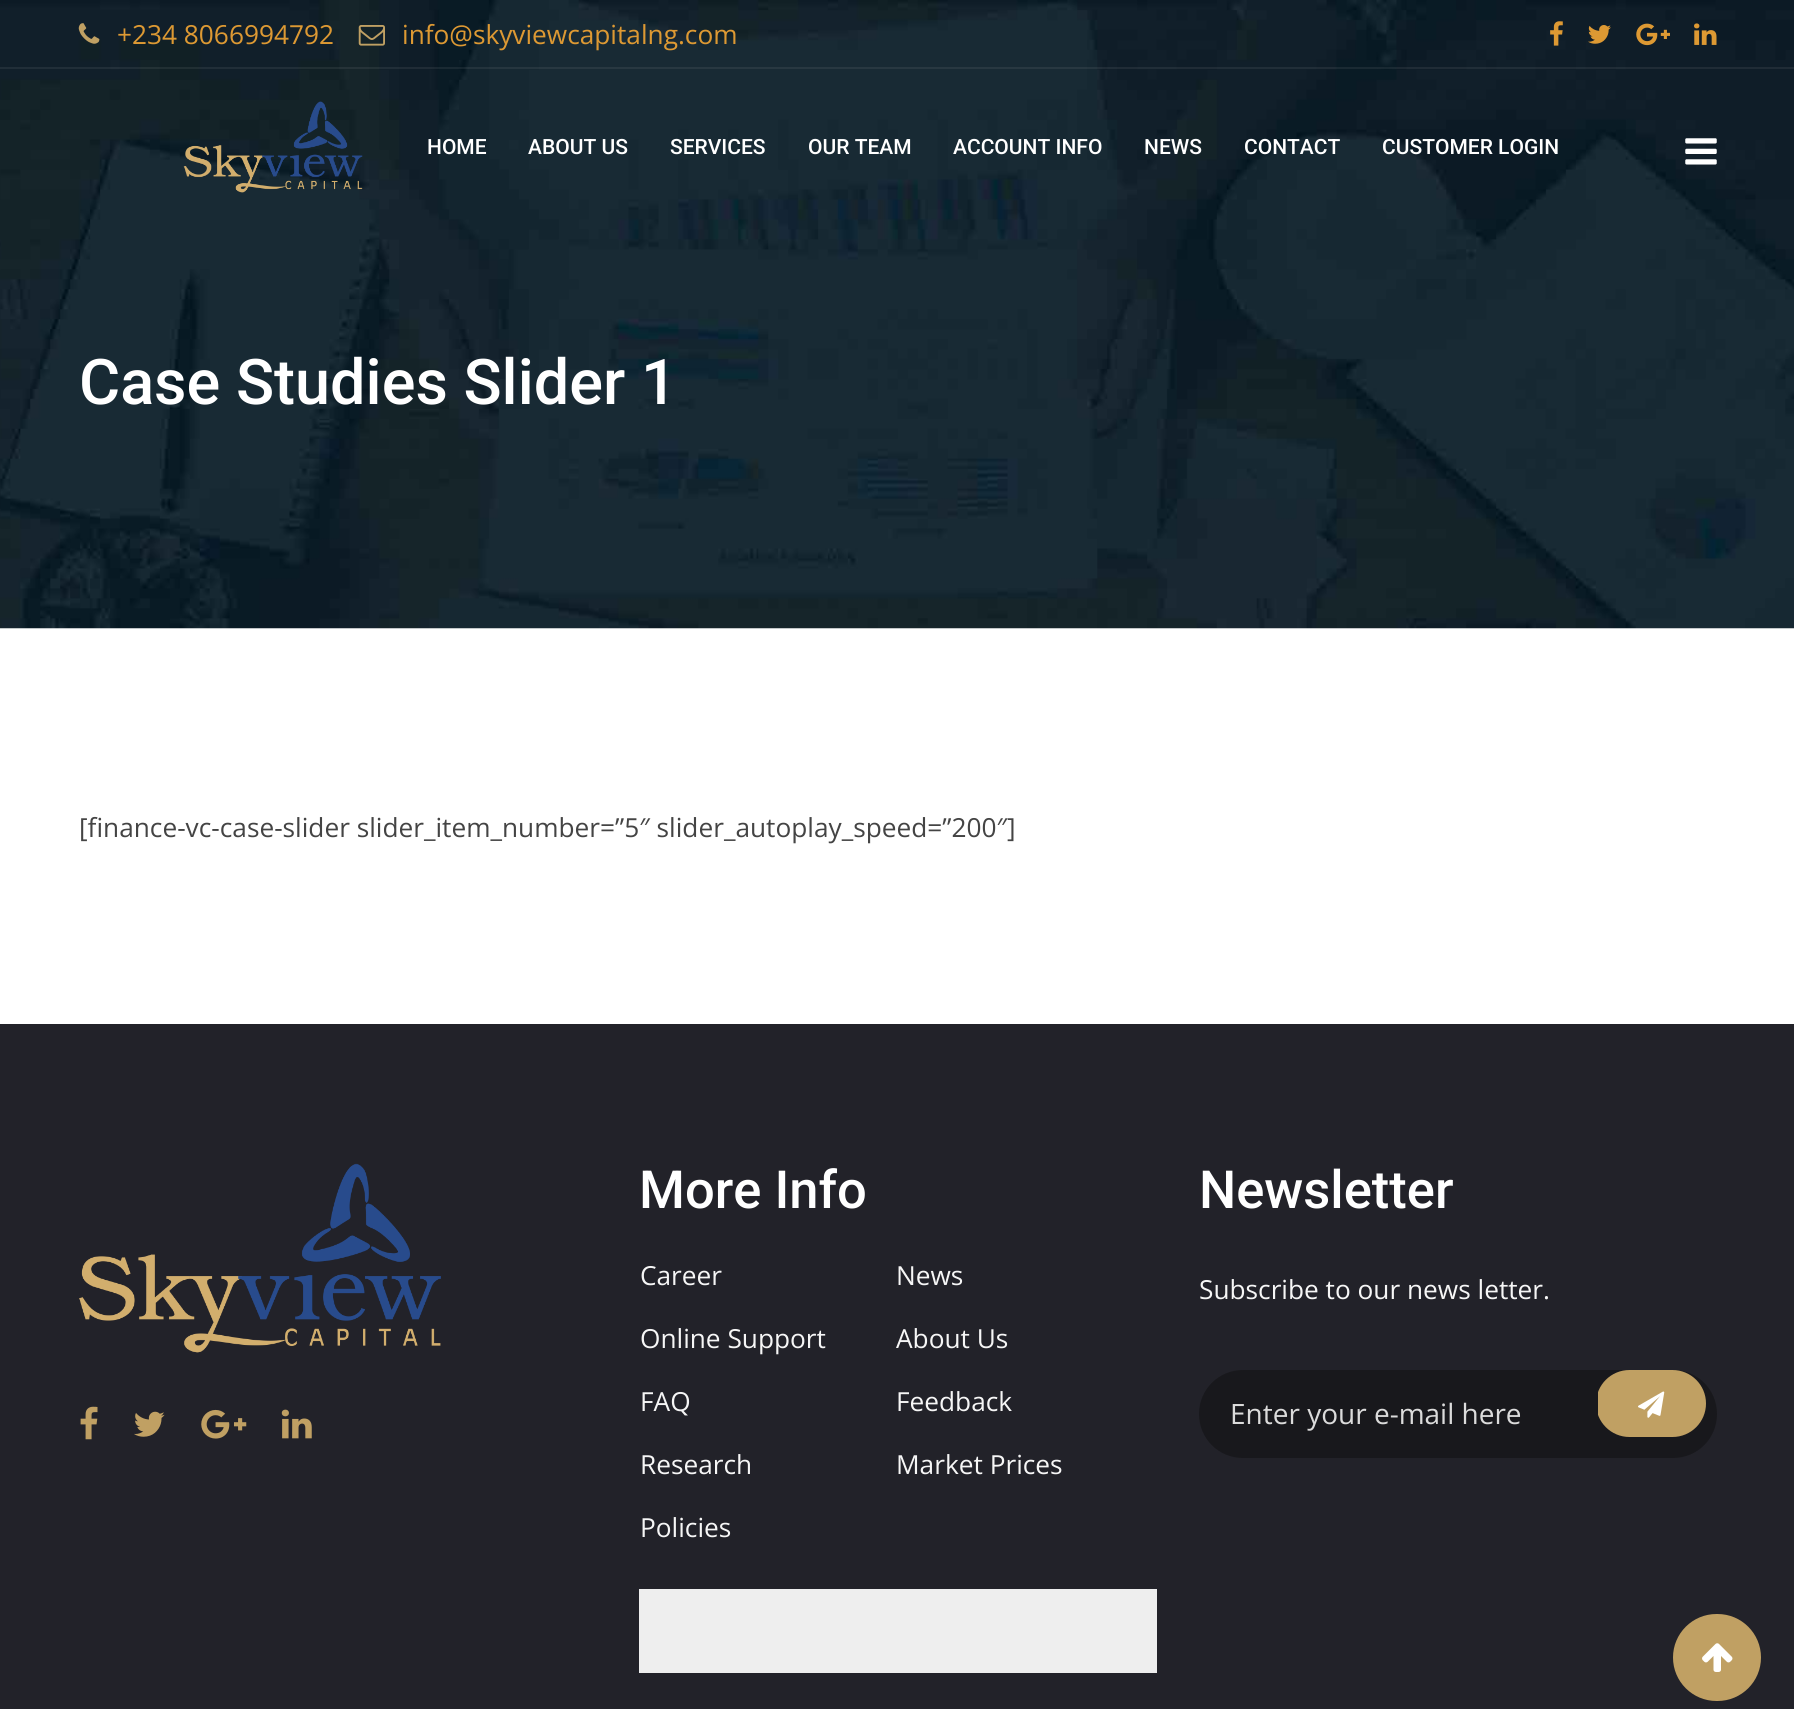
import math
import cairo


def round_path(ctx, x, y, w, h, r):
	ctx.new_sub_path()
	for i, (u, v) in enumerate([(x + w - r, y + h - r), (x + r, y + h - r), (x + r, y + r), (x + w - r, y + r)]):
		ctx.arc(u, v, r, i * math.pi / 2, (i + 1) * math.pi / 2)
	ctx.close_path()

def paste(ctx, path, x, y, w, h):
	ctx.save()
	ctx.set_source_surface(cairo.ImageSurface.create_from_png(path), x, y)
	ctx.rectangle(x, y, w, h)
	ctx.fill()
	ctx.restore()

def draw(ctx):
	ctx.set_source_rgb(1, 1, 1)
	ctx.paint()
	paste(ctx, 'media/9.png', 0, 0, 1794, 629)
	ctx.set_source_rgba(0.71, 0.71, 0.71, 0.1)
	ctx.rectangle(0, 67, 1794, 2)
	ctx.fill()
	paste(ctx, 'media/1.png', 78, 23, 22, 21)
	ctx.select_font_face('Open Sans')
	ctx.set_font_size(26.25)
	ctx.set_source_rgb(0.867, 0.6, 0.2)
	ctx.move_to(117, 44)
	ctx.show_text('+234 8066994792')
	paste(ctx, 'media/2.png', 358, 25, 27, 21)
	ctx.move_to(402, 44)
	ctx.show_text('info@skyviewcapitalng.com')
	paste(ctx, 'media/3.png', 1550, 21, 13, 25)
	paste(ctx, 'media/4.png', 1588, 25, 23, 19)
	paste(ctx, 'media/5.png', 1636, 23, 34, 23)
	paste(ctx, 'media/6.png', 1694, 23, 23, 22)
	paste(ctx, 'media/7.png', 183, 101, 180, 92)
	ctx.select_font_face('Roboto Medium')
	ctx.set_font_size(21)
	ctx.set_source_rgb(1, 1, 1)
	for x, y, s in [
		(427, 154, 'HOME'),
		(528, 154, 'ABOUT US'),
		(670, 154, 'SERVICES'),
		(808, 154, 'OUR TEAM'),
		(953, 154, 'ACCOUNT INFO'),
		(1144, 154, 'NEWS'),
		(1244, 154, 'CONTACT'),
		(1382, 154, 'CUSTOMER LOGIN'),
	]:
		ctx.move_to(x, y)
		ctx.show_text(s)
	paste(ctx, 'media/8.png', 1685, 138, 32, 27)
	ctx.set_font_size(63)
	ctx.move_to(79, 404)
	ctx.show_text('Case Studies Slider 1')
	ctx.select_font_face('Open Sans')
	ctx.set_font_size(26.25)
	ctx.set_source_rgb(0.267, 0.267, 0.267)
	ctx.move_to(79, 837)
	ctx.show_text('[finance-vc-case-slider slider_item_number=”5″ slider_autoplay_speed=”200″]')
	ctx.set_source_rgb(0.133, 0.133, 0.161)
	ctx.rectangle(0, 1024, 1794, 685)
	ctx.fill()
	paste(ctx, 'media/10.png', 79, 1163, 362, 190)
	paste(ctx, 'media/11.png', 80, 1406, 18, 34)
	paste(ctx, 'media/12.png', 134, 1411, 31, 26)
	paste(ctx, 'media/13.png', 201, 1409, 46, 30)
	paste(ctx, 'media/14.png', 281, 1409, 31, 30)
	ctx.select_font_face('Roboto Medium')
	ctx.set_font_size(52.5)
	ctx.set_source_rgb(1, 1, 1)
	ctx.move_to(639, 1208)
	ctx.show_text('More Info')
	ctx.select_font_face('Open Sans')
	ctx.set_font_size(26.25)
	ctx.set_source_rgb(0.961, 0.961, 0.961)
	for x, y, s in [
		(640, 1285, 'Career'),
		(896, 1285, 'News'),
		(640, 1348, 'Online Support'),
		(896, 1348, 'About Us'),
		(640, 1411, 'FAQ'),
		(896, 1411, 'Feedback'),
		(640, 1474, 'Research'),
		(896, 1474, 'Market Prices'),
		(640, 1537, 'Policies'),
	]:
		ctx.move_to(x, y)
		ctx.show_text(s)
	ctx.set_source_rgb(0.933, 0.933, 0.933)
	ctx.rectangle(639, 1589, 518, 84)
	ctx.fill()
	ctx.select_font_face('Roboto Medium')
	ctx.set_font_size(52.5)
	ctx.set_source_rgb(1, 1, 1)
	ctx.move_to(1199, 1208)
	ctx.show_text('Newsletter')
	ctx.select_font_face('Open Sans')
	ctx.set_font_size(26.25)
	ctx.set_source_rgb(0.961, 0.961, 0.961)
	ctx.move_to(1199, 1299)
	ctx.show_text('Subscribe to our news letter.')
	ctx.set_source_rgb(0.094, 0.094, 0.11)
	ctx.new_path()
	ctx.move_to(1596, 1370)
	ctx.line_to(1673, 1370)
	ctx.curve_to(1697.5, 1370, 1717, 1389.5, 1717, 1414)
	ctx.curve_to(1717, 1438.5, 1697.5, 1458, 1673, 1458)
	ctx.line_to(1596, 1458)
	ctx.close_path()
	ctx.fill()
	ctx.set_source_rgb(0.753, 0.627, 0.388)
	round_path(ctx, 1596, 1370, 110, 67, 33.5)
	ctx.fill()
	ctx.set_source_rgb(0.094, 0.094, 0.11)
	ctx.new_path()
	ctx.move_to(1243, 1370)
	ctx.line_to(1598, 1370)
	ctx.line_to(1598, 1458)
	ctx.line_to(1243, 1458)
	ctx.curve_to(1218.5, 1458, 1199, 1438.5, 1199, 1414)
	ctx.curve_to(1199, 1389.5, 1218.5, 1370, 1243, 1370)
	ctx.close_path()
	ctx.fill()
	ctx.set_font_size(28)
	ctx.set_source_rgb(0.859, 0.859, 0.859)
	ctx.move_to(1230, 1424)
	ctx.show_text('Enter your e-mail here')
	paste(ctx, 'media/15.png', 1638, 1391, 27, 27)
	ctx.set_source_rgb(0.753, 0.627, 0.388)
	round_path(ctx, 1673, 1614, 88, 87, 43.5)
	ctx.fill()
	paste(ctx, 'media/16.png', 1702, 1643, 31, 29)


surface = cairo.ImageSurface(cairo.FORMAT_RGB24, 1794, 1709)
ctx = cairo.Context(surface)
options = cairo.FontOptions()
options.set_hint_metrics(cairo.HINT_METRICS_OFF)
options.set_hint_style(cairo.HINT_STYLE_NONE)
ctx.set_font_options(options)
ctx.set_miter_limit(4)
draw(ctx)
surface.write_to_png('image.png')
